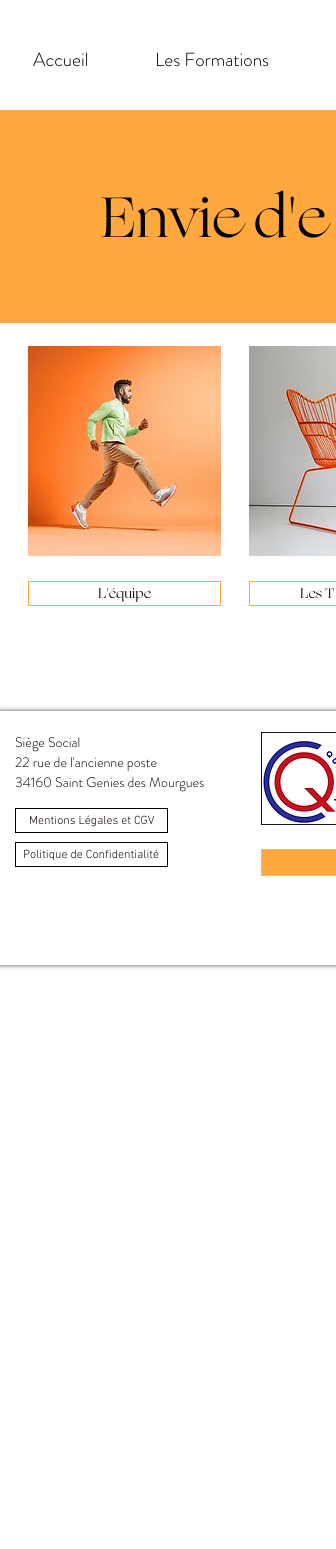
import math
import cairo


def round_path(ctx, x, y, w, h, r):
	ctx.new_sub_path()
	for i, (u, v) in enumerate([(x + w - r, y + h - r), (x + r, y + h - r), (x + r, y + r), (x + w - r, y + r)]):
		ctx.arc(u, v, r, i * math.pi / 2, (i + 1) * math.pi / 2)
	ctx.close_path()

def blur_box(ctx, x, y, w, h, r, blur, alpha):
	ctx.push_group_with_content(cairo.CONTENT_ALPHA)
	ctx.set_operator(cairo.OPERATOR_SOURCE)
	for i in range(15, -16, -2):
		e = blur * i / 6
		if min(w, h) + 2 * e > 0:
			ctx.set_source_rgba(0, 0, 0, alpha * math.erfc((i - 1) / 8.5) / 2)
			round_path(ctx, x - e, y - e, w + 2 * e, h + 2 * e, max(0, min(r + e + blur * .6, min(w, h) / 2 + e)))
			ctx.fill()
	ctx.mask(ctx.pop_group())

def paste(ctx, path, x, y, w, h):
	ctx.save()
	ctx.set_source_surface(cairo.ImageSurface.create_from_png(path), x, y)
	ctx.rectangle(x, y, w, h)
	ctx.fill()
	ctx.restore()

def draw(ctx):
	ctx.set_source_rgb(1, 1, 1)
	ctx.paint()
	ctx.select_font_face('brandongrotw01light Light')
	ctx.set_font_size(19)
	ctx.set_source_rgb(0, 0, 0)
	ctx.move_to(33, 66)
	ctx.show_text('Accueil')
	ctx.move_to(155, 66)
	ctx.show_text('Les Formations')
	ctx.set_source_rgb(1, 0.659, 0.243)
	ctx.rectangle(0, 110, 336, 213)
	ctx.fill()
	ctx.select_font_face('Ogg')
	ctx.set_font_size(57)
	ctx.set_source_rgb(0, 0, 0)
	ctx.move_to(101, 237)
	ctx.show_text('Envie d\'e')
	paste(ctx, 'media/1.png', 28, 346, 193, 210)
	paste(ctx, 'media/2.png', 249, 346, 87, 210)
	ctx.rectangle(28.5, 581.5, 192, 24)
	ctx.set_source_rgb(1, 0.659, 0.243)
	ctx.set_line_width(1)
	ctx.stroke()
	ctx.set_font_size(14)
	ctx.set_source_rgb(0.039, 0.039, 0.039)
	ctx.move_to(98, 598)
	ctx.show_text('L\'équipe')
	ctx.rectangle(249.5, 581.5, 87, 24)
	ctx.set_source_rgb(1, 0.659, 0.243)
	ctx.stroke()
	ctx.set_source_rgb(0.039, 0.039, 0.039)
	ctx.move_to(300, 598)
	ctx.show_text('Les T')
	ctx.save()
	ctx.set_fill_rule(cairo.FILL_RULE_EVEN_ODD)
	ctx.new_path()
	ctx.move_to(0, 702)
	ctx.line_to(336, 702)
	ctx.line_to(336, 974)
	ctx.line_to(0, 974)
	ctx.close_path()
	ctx.move_to(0, 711)
	ctx.line_to(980, 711)
	ctx.line_to(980, 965)
	ctx.line_to(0, 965)
	ctx.close_path()
	ctx.clip()
	ctx.set_source_rgb(0, 0, 0)
	blur_box(ctx, 0, 711, 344, 254, 0, 2.5, 0.7)
	ctx.restore()
	ctx.select_font_face('brandongrotw01light Light')
	ctx.set_source_rgb(0, 0, 0)
	for x, y, s in [
		(15, 747, 'Siège Social'),
		(15, 767, '22 rue de l\'ancienne poste'),
		(15, 787, '34160 Saint Genies des Mourgues'),
	]:
		ctx.move_to(x, y)
		ctx.show_text(s)
	ctx.set_source_rgb(0.11, 0.063, 0.071)
	ctx.rectangle(261, 732, 75, 93)
	ctx.fill()
	paste(ctx, 'media/3.png', 262, 733, 74, 91)
	ctx.rectangle(15.5, 808.5, 152, 24)
	ctx.set_source_rgb(0, 0, 0)
	ctx.stroke()
	ctx.select_font_face('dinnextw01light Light')
	ctx.set_font_size(12)
	ctx.set_source_rgb(0.11, 0.063, 0.071)
	ctx.move_to(29, 824)
	ctx.show_text('Mentions Légales et CGV')
	ctx.rectangle(15.5, 842.5, 152, 24)
	ctx.set_source_rgb(0, 0, 0)
	ctx.stroke()
	ctx.set_source_rgb(0.11, 0.063, 0.071)
	ctx.move_to(23, 858)
	ctx.show_text('Politique de Confidentialité')
	ctx.set_source_rgb(1, 0.659, 0.243)
	ctx.rectangle(261.5, 849.5, 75, 26)
	ctx.fill_preserve()
	ctx.set_source_rgb(0.91, 0.753, 0.38)
	ctx.stroke()


surface = cairo.ImageSurface(cairo.FORMAT_RGB24, 336, 1549)
ctx = cairo.Context(surface)
options = cairo.FontOptions()
options.set_hint_metrics(cairo.HINT_METRICS_OFF)
options.set_hint_style(cairo.HINT_STYLE_NONE)
ctx.set_font_options(options)
ctx.set_miter_limit(4)
draw(ctx)
surface.write_to_png('image.png')
